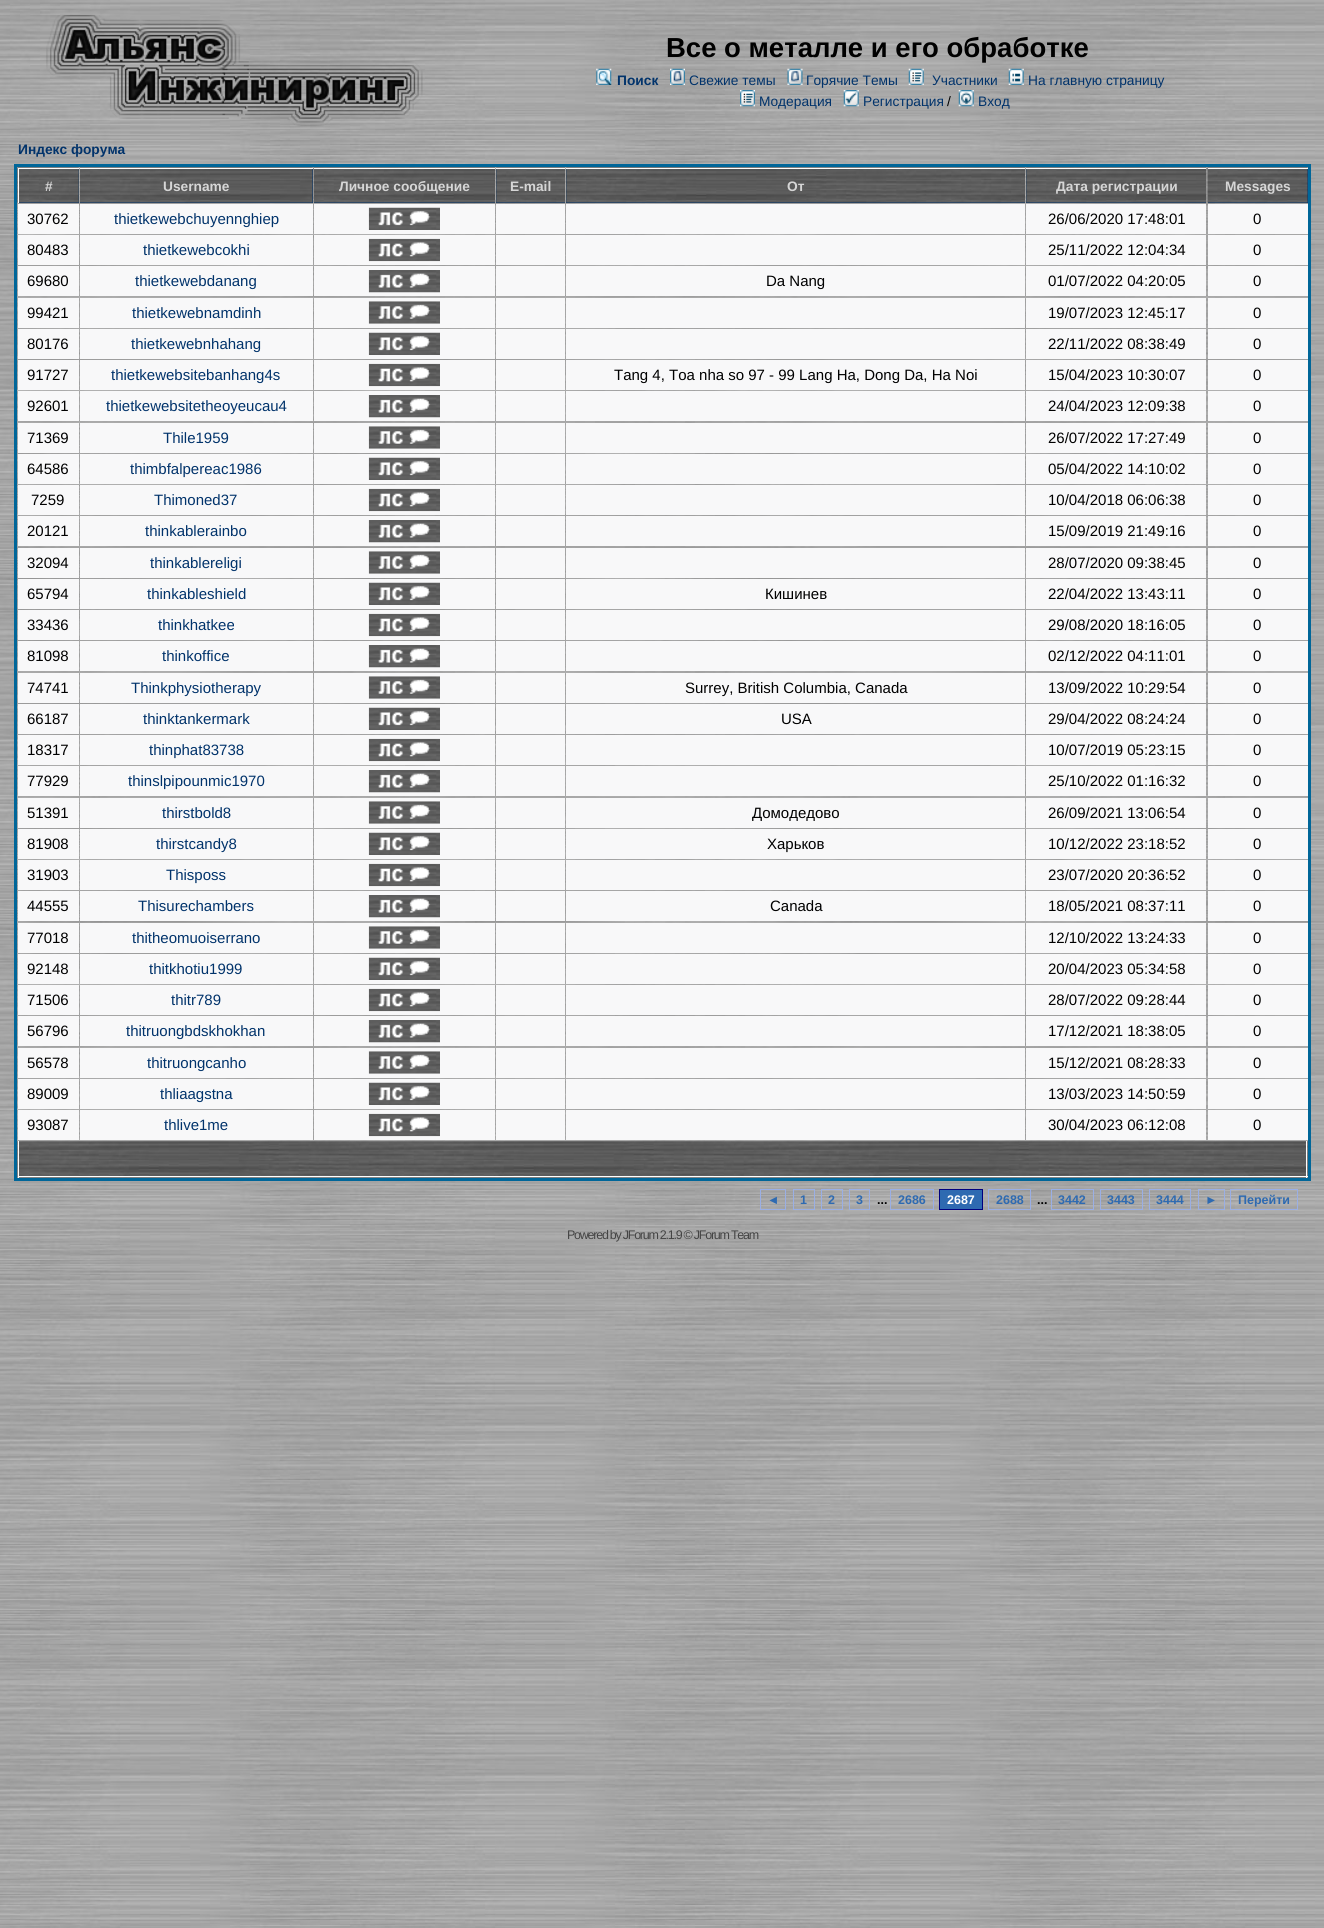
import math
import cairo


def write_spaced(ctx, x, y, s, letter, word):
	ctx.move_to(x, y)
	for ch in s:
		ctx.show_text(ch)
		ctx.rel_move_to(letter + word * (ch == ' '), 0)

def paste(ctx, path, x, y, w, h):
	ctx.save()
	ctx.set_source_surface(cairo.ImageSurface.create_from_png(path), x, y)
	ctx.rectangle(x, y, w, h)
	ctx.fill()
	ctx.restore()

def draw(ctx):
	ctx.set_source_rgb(1, 1, 1)
	ctx.paint()
	paste(ctx, 'media/1.png', 0, 0, 1324, 1928)
	paste(ctx, 'media/2.png', 46, 15, 377, 112)
	ctx.select_font_face('Liberation Sans', cairo.FONT_SLANT_NORMAL, cairo.FONT_WEIGHT_BOLD)
	ctx.set_font_size(27.5)
	ctx.set_source_rgb(0, 0, 0)
	ctx.move_to(666, 57)
	ctx.show_text('Все о металле и его обработке')
	paste(ctx, 'media/3.png', 596, 68, 16, 17)
	ctx.set_font_size(13.75)
	ctx.set_source_rgb(0.004, 0.2, 0.42)
	ctx.move_to(617, 85)
	ctx.show_text('Поиск')
	paste(ctx, 'media/4.png', 670, 68, 15, 17)
	ctx.select_font_face('Liberation Sans')
	ctx.move_to(689, 85)
	ctx.show_text('Свежие темы')
	paste(ctx, 'media/5.png', 787, 68, 16, 17)
	ctx.move_to(806, 85)
	ctx.show_text('Горячие Темы')
	paste(ctx, 'media/6.png', 908, 68, 16, 17)
	ctx.move_to(932, 85)
	ctx.show_text('Участники')
	paste(ctx, 'media/7.png', 1008, 68, 16, 17)
	ctx.move_to(1028, 85)
	ctx.show_text('На главную страницу')
	paste(ctx, 'media/8.png', 740, 90, 15, 17)
	ctx.move_to(759, 106)
	ctx.show_text('Модерация')
	paste(ctx, 'media/9.png', 843, 90, 16, 17)
	ctx.move_to(863, 106)
	ctx.show_text('Регистрация')
	ctx.set_source_rgb(0, 0, 0)
	ctx.move_to(947, 106)
	ctx.show_text('/')
	paste(ctx, 'media/10.png', 958, 90, 16, 17)
	ctx.set_source_rgb(0.004, 0.2, 0.42)
	ctx.move_to(978, 106)
	ctx.show_text('Вход')
	ctx.select_font_face('Liberation Sans', cairo.FONT_SLANT_NORMAL, cairo.FONT_WEIGHT_BOLD)
	ctx.move_to(18, 154)
	ctx.show_text('Индекс форума')
	ctx.rectangle(15.5, 165.5, 1294, 1014)
	ctx.set_source_rgb(0, 0.4, 0.6)
	ctx.set_line_width(3)
	ctx.stroke()
	ctx.set_source_rgb(0.004, 0.2, 0.42)
	ctx.rectangle(19, 169, 60, 34)
	ctx.fill()
	paste(ctx, 'media/11.png', 17, 167, 62, 36)
	ctx.set_source_rgb(1, 1, 1)
	ctx.rectangle(18, 168, 61, 1)
	ctx.fill()
	ctx.rectangle(18, 168, 1, 35)
	ctx.fill()
	ctx.set_source_rgb(0.839, 0.839, 0.839)
	ctx.move_to(45, 191)
	ctx.show_text('#')
	ctx.set_source_rgb(0.004, 0.2, 0.42)
	ctx.rectangle(80, 169, 233, 34)
	ctx.fill()
	paste(ctx, 'media/12.png', 80, 167, 233, 36)
	ctx.set_source_rgb(1, 1, 1)
	ctx.rectangle(80, 168, 233, 1)
	ctx.fill()
	ctx.set_source_rgb(0.839, 0.839, 0.839)
	ctx.move_to(163, 191)
	ctx.show_text('Username')
	ctx.set_source_rgb(0.004, 0.2, 0.42)
	ctx.rectangle(314, 202, 181, 1)
	ctx.fill()
	paste(ctx, 'media/13.png', 313, 167, 182, 36)
	ctx.set_source_rgb(1, 1, 1)
	ctx.rectangle(314, 168, 181, 1)
	ctx.fill()
	ctx.set_source_rgb(0.839, 0.839, 0.839)
	ctx.move_to(339, 191)
	ctx.show_text('Личное сообщение')
	ctx.set_source_rgb(0.004, 0.2, 0.42)
	ctx.rectangle(496, 169, 69, 34)
	ctx.fill()
	paste(ctx, 'media/14.png', 496, 167, 69, 36)
	ctx.set_source_rgb(1, 1, 1)
	ctx.rectangle(496, 168, 69, 1)
	ctx.fill()
	ctx.set_source_rgb(0.839, 0.839, 0.839)
	ctx.move_to(510, 191)
	ctx.show_text('E-mail')
	ctx.set_source_rgb(0.004, 0.2, 0.42)
	ctx.rectangle(566, 169, 459, 34)
	ctx.fill()
	paste(ctx, 'media/15.png', 566, 167, 459, 36)
	ctx.set_source_rgb(1, 1, 1)
	ctx.rectangle(566, 168, 459, 1)
	ctx.fill()
	ctx.set_source_rgb(0.839, 0.839, 0.839)
	ctx.move_to(787, 191)
	ctx.show_text('От')
	ctx.set_source_rgb(0.004, 0.2, 0.42)
	ctx.rectangle(1026, 169, 180, 34)
	ctx.fill()
	paste(ctx, 'media/16.png', 1026, 167, 181, 36)
	ctx.set_source_rgb(1, 1, 1)
	ctx.rectangle(1026, 168, 180, 1)
	ctx.fill()
	ctx.set_source_rgb(0.839, 0.839, 0.839)
	ctx.move_to(1056, 191)
	ctx.show_text('Дата регистрации')
	ctx.set_source_rgb(0.004, 0.2, 0.42)
	ctx.rectangle(1208, 169, 100, 34)
	ctx.fill()
	paste(ctx, 'media/17.png', 1207, 167, 101, 36)
	ctx.set_source_rgb(1, 1, 1)
	ctx.rectangle(1208, 168, 100, 1)
	ctx.fill()
	ctx.set_source_rgb(0.839, 0.839, 0.839)
	ctx.move_to(1225, 191)
	ctx.show_text('Messages')
	ctx.set_source_rgb(0.969, 0.969, 0.973)
	ctx.rectangle(18, 204, 61, 30)
	ctx.fill()
	ctx.select_font_face('Liberation Sans')
	ctx.set_font_size(15)
	ctx.set_source_rgb(0, 0, 0)
	ctx.move_to(27, 224)
	ctx.show_text('30762')
	ctx.set_source_rgb(0.969, 0.969, 0.973)
	ctx.rectangle(80, 204, 233, 30)
	ctx.fill()
	ctx.set_source_rgb(0.004, 0.2, 0.42)
	ctx.move_to(114, 224)
	ctx.show_text('thietkewebchuyennghiep')
	ctx.set_source_rgb(0.969, 0.969, 0.973)
	ctx.rectangle(314, 204, 181, 30)
	ctx.fill()
	paste(ctx, 'media/18.png', 368, 207, 72, 23)
	ctx.rectangle(496, 204, 69, 30)
	ctx.rectangle(566, 204, 459, 30)
	ctx.rectangle(1026, 204, 180, 30)
	ctx.fill()
	ctx.set_source_rgb(0, 0, 0)
	ctx.move_to(1048, 224)
	ctx.show_text('26/06/2020 17:48:01')
	ctx.set_source_rgb(0.969, 0.969, 0.973)
	ctx.rectangle(1208, 204, 100, 30)
	ctx.fill()
	ctx.set_source_rgb(0, 0, 0)
	ctx.move_to(1253, 224)
	ctx.show_text('0')
	ctx.set_source_rgb(0.969, 0.969, 0.973)
	ctx.rectangle(18, 235, 61, 30)
	ctx.fill()
	ctx.set_source_rgb(0, 0, 0)
	ctx.move_to(27, 255)
	ctx.show_text('80483')
	ctx.set_source_rgb(0.969, 0.969, 0.973)
	ctx.rectangle(80, 235, 233, 30)
	ctx.fill()
	ctx.set_source_rgb(0.004, 0.2, 0.42)
	ctx.move_to(143, 255)
	ctx.show_text('thietkewebcokhi')
	ctx.set_source_rgb(0.969, 0.969, 0.973)
	ctx.rectangle(314, 235, 181, 30)
	ctx.fill()
	paste(ctx, 'media/19.png', 368, 238, 72, 24)
	ctx.rectangle(496, 235, 69, 30)
	ctx.rectangle(566, 235, 459, 30)
	ctx.rectangle(1026, 235, 180, 30)
	ctx.fill()
	ctx.set_source_rgb(0, 0, 0)
	ctx.move_to(1048, 255)
	ctx.show_text('25/11/2022 12:04:34')
	ctx.set_source_rgb(0.969, 0.969, 0.973)
	ctx.rectangle(1208, 235, 100, 30)
	ctx.fill()
	ctx.set_source_rgb(0, 0, 0)
	ctx.move_to(1253, 255)
	ctx.show_text('0')
	ctx.set_source_rgb(0.969, 0.969, 0.973)
	ctx.rectangle(18, 266, 61, 30)
	ctx.fill()
	ctx.set_source_rgb(0, 0, 0)
	ctx.move_to(27, 286)
	ctx.show_text('69680')
	ctx.set_source_rgb(0.969, 0.969, 0.973)
	ctx.rectangle(80, 266, 233, 30)
	ctx.fill()
	ctx.set_source_rgb(0.004, 0.2, 0.42)
	ctx.move_to(135, 286)
	ctx.show_text('thietkewebdanang')
	ctx.set_source_rgb(0.969, 0.969, 0.973)
	ctx.rectangle(314, 266, 181, 30)
	ctx.fill()
	paste(ctx, 'media/20.png', 368, 270, 72, 23)
	ctx.rectangle(496, 266, 69, 30)
	ctx.fill()
	ctx.rectangle(566, 266, 459, 30)
	ctx.fill()
	ctx.set_source_rgb(0, 0, 0)
	ctx.move_to(766, 286)
	ctx.show_text('Da Nang')
	ctx.set_source_rgb(0.969, 0.969, 0.973)
	ctx.rectangle(1026, 266, 180, 30)
	ctx.fill()
	ctx.set_source_rgb(0, 0, 0)
	ctx.move_to(1048, 286)
	ctx.show_text('01/07/2022 04:20:05')
	ctx.set_source_rgb(0.969, 0.969, 0.973)
	ctx.rectangle(1208, 266, 100, 30)
	ctx.fill()
	ctx.set_source_rgb(0, 0, 0)
	ctx.move_to(1253, 286)
	ctx.show_text('0')
	ctx.set_source_rgb(0.969, 0.969, 0.973)
	ctx.rectangle(18, 298, 61, 30)
	ctx.fill()
	ctx.set_source_rgb(0, 0, 0)
	ctx.move_to(27, 318)
	ctx.show_text('99421')
	ctx.set_source_rgb(0.969, 0.969, 0.973)
	ctx.rectangle(80, 298, 233, 30)
	ctx.fill()
	ctx.set_source_rgb(0.004, 0.2, 0.42)
	ctx.move_to(132, 318)
	ctx.show_text('thietkewebnamdinh')
	ctx.set_source_rgb(0.969, 0.969, 0.973)
	ctx.rectangle(314, 298, 181, 30)
	ctx.fill()
	paste(ctx, 'media/21.png', 368, 301, 72, 23)
	ctx.rectangle(496, 298, 69, 30)
	ctx.rectangle(566, 298, 459, 30)
	ctx.rectangle(1026, 298, 180, 30)
	ctx.fill()
	ctx.set_source_rgb(0, 0, 0)
	ctx.move_to(1048, 318)
	ctx.show_text('19/07/2023 12:45:17')
	ctx.set_source_rgb(0.969, 0.969, 0.973)
	ctx.rectangle(1208, 298, 100, 30)
	ctx.fill()
	ctx.set_source_rgb(0, 0, 0)
	ctx.move_to(1253, 318)
	ctx.show_text('0')
	ctx.set_source_rgb(0.969, 0.969, 0.973)
	ctx.rectangle(18, 329, 61, 30)
	ctx.fill()
	ctx.set_source_rgb(0, 0, 0)
	ctx.move_to(27, 349)
	ctx.show_text('80176')
	ctx.set_source_rgb(0.969, 0.969, 0.973)
	ctx.rectangle(80, 329, 233, 30)
	ctx.fill()
	ctx.set_source_rgb(0.004, 0.2, 0.42)
	ctx.move_to(131, 349)
	ctx.show_text('thietkewebnhahang')
	ctx.set_source_rgb(0.969, 0.969, 0.973)
	ctx.rectangle(314, 329, 181, 30)
	ctx.fill()
	paste(ctx, 'media/22.png', 368, 332, 72, 23)
	ctx.rectangle(496, 329, 69, 30)
	ctx.rectangle(566, 329, 459, 30)
	ctx.rectangle(1026, 329, 180, 30)
	ctx.fill()
	ctx.set_source_rgb(0, 0, 0)
	ctx.move_to(1048, 349)
	ctx.show_text('22/11/2022 08:38:49')
	ctx.set_source_rgb(0.969, 0.969, 0.973)
	ctx.rectangle(1208, 329, 100, 30)
	ctx.fill()
	ctx.set_source_rgb(0, 0, 0)
	ctx.move_to(1253, 349)
	ctx.show_text('0')
	ctx.set_source_rgb(0.969, 0.969, 0.973)
	ctx.rectangle(18, 360, 61, 30)
	ctx.fill()
	ctx.set_source_rgb(0, 0, 0)
	ctx.move_to(27, 380)
	ctx.show_text('91727')
	ctx.set_source_rgb(0.969, 0.969, 0.973)
	ctx.rectangle(80, 360, 233, 30)
	ctx.fill()
	ctx.set_source_rgb(0.004, 0.2, 0.42)
	ctx.move_to(111, 380)
	ctx.show_text('thietkewebsitebanhang4s')
	ctx.set_source_rgb(0.969, 0.969, 0.973)
	ctx.rectangle(314, 360, 181, 30)
	ctx.fill()
	paste(ctx, 'media/23.png', 368, 363, 72, 24)
	ctx.rectangle(496, 360, 69, 30)
	ctx.fill()
	ctx.rectangle(566, 360, 459, 30)
	ctx.fill()
	ctx.set_source_rgb(0, 0, 0)
	ctx.move_to(614, 380)
	ctx.show_text('Tang 4, Toa nha so 97 - 99 Lang Ha, Dong Da, Ha Noi')
	ctx.set_source_rgb(0.969, 0.969, 0.973)
	ctx.rectangle(1026, 360, 180, 30)
	ctx.fill()
	ctx.set_source_rgb(0, 0, 0)
	ctx.move_to(1048, 380)
	ctx.show_text('15/04/2023 10:30:07')
	ctx.set_source_rgb(0.969, 0.969, 0.973)
	ctx.rectangle(1208, 360, 100, 30)
	ctx.fill()
	ctx.set_source_rgb(0, 0, 0)
	ctx.move_to(1253, 380)
	ctx.show_text('0')
	ctx.set_source_rgb(0.969, 0.969, 0.973)
	ctx.rectangle(18, 391, 61, 30)
	ctx.fill()
	ctx.set_source_rgb(0, 0, 0)
	ctx.move_to(27, 411)
	ctx.show_text('92601')
	ctx.set_source_rgb(0.969, 0.969, 0.973)
	ctx.rectangle(80, 391, 233, 30)
	ctx.fill()
	ctx.set_source_rgb(0.004, 0.2, 0.42)
	ctx.move_to(106, 411)
	ctx.show_text('thietkewebsitetheoyeucau4')
	ctx.set_source_rgb(0.969, 0.969, 0.973)
	ctx.rectangle(314, 391, 181, 30)
	ctx.fill()
	paste(ctx, 'media/24.png', 368, 395, 72, 23)
	ctx.rectangle(496, 391, 69, 30)
	ctx.rectangle(566, 391, 459, 30)
	ctx.rectangle(1026, 391, 180, 30)
	ctx.fill()
	ctx.set_source_rgb(0, 0, 0)
	ctx.move_to(1048, 411)
	ctx.show_text('24/04/2023 12:09:38')
	ctx.set_source_rgb(0.969, 0.969, 0.973)
	ctx.rectangle(1208, 391, 100, 30)
	ctx.fill()
	ctx.set_source_rgb(0, 0, 0)
	ctx.move_to(1253, 411)
	ctx.show_text('0')
	ctx.set_source_rgb(0.969, 0.969, 0.973)
	ctx.rectangle(18, 423, 61, 30)
	ctx.fill()
	ctx.set_source_rgb(0, 0, 0)
	ctx.move_to(27, 443)
	ctx.show_text('71369')
	ctx.set_source_rgb(0.969, 0.969, 0.973)
	ctx.rectangle(80, 423, 233, 30)
	ctx.fill()
	ctx.set_source_rgb(0.004, 0.2, 0.42)
	ctx.move_to(163, 443)
	ctx.show_text('Thile1959')
	ctx.set_source_rgb(0.969, 0.969, 0.973)
	ctx.rectangle(314, 423, 181, 30)
	ctx.fill()
	paste(ctx, 'media/25.png', 368, 426, 72, 23)
	ctx.rectangle(496, 423, 69, 30)
	ctx.rectangle(566, 423, 459, 30)
	ctx.rectangle(1026, 423, 180, 30)
	ctx.fill()
	ctx.set_source_rgb(0, 0, 0)
	ctx.move_to(1048, 443)
	ctx.show_text('26/07/2022 17:27:49')
	ctx.set_source_rgb(0.969, 0.969, 0.973)
	ctx.rectangle(1208, 423, 100, 30)
	ctx.fill()
	ctx.set_source_rgb(0, 0, 0)
	ctx.move_to(1253, 443)
	ctx.show_text('0')
	ctx.set_source_rgb(0.969, 0.969, 0.973)
	ctx.rectangle(18, 454, 61, 30)
	ctx.fill()
	ctx.set_source_rgb(0, 0, 0)
	ctx.move_to(27, 474)
	ctx.show_text('64586')
	ctx.set_source_rgb(0.969, 0.969, 0.973)
	ctx.rectangle(80, 454, 233, 30)
	ctx.fill()
	ctx.set_source_rgb(0.004, 0.2, 0.42)
	ctx.move_to(130, 474)
	ctx.show_text('thimbfalpereac1986')
	ctx.set_source_rgb(0.969, 0.969, 0.973)
	ctx.rectangle(314, 454, 181, 30)
	ctx.fill()
	paste(ctx, 'media/26.png', 368, 457, 72, 23)
	ctx.rectangle(496, 454, 69, 30)
	ctx.rectangle(566, 454, 459, 30)
	ctx.rectangle(1026, 454, 180, 30)
	ctx.fill()
	ctx.set_source_rgb(0, 0, 0)
	ctx.move_to(1048, 474)
	ctx.show_text('05/04/2022 14:10:02')
	ctx.set_source_rgb(0.969, 0.969, 0.973)
	ctx.rectangle(1208, 454, 100, 30)
	ctx.fill()
	ctx.set_source_rgb(0, 0, 0)
	ctx.move_to(1253, 474)
	ctx.show_text('0')
	ctx.set_source_rgb(0.969, 0.969, 0.973)
	ctx.rectangle(18, 485, 61, 30)
	ctx.fill()
	ctx.set_source_rgb(0, 0, 0)
	ctx.move_to(31, 505)
	ctx.show_text('7259')
	ctx.set_source_rgb(0.969, 0.969, 0.973)
	ctx.rectangle(80, 485, 233, 30)
	ctx.fill()
	ctx.set_source_rgb(0.004, 0.2, 0.42)
	ctx.move_to(154, 505)
	ctx.show_text('Thimoned37')
	ctx.set_source_rgb(0.969, 0.969, 0.973)
	ctx.rectangle(314, 485, 181, 30)
	ctx.fill()
	paste(ctx, 'media/27.png', 368, 488, 72, 24)
	ctx.rectangle(496, 485, 69, 30)
	ctx.rectangle(566, 485, 459, 30)
	ctx.rectangle(1026, 485, 180, 30)
	ctx.fill()
	ctx.set_source_rgb(0, 0, 0)
	ctx.move_to(1048, 505)
	ctx.show_text('10/04/2018 06:06:38')
	ctx.set_source_rgb(0.969, 0.969, 0.973)
	ctx.rectangle(1208, 485, 100, 30)
	ctx.fill()
	ctx.set_source_rgb(0, 0, 0)
	ctx.move_to(1253, 505)
	ctx.show_text('0')
	ctx.set_source_rgb(0.969, 0.969, 0.973)
	ctx.rectangle(18, 516, 61, 30)
	ctx.fill()
	ctx.set_source_rgb(0, 0, 0)
	ctx.move_to(27, 536)
	ctx.show_text('20121')
	ctx.set_source_rgb(0.969, 0.969, 0.973)
	ctx.rectangle(80, 516, 233, 30)
	ctx.fill()
	ctx.set_source_rgb(0.004, 0.2, 0.42)
	ctx.move_to(145, 536)
	ctx.show_text('thinkablerainbo')
	ctx.set_source_rgb(0.969, 0.969, 0.973)
	ctx.rectangle(314, 516, 181, 30)
	ctx.fill()
	paste(ctx, 'media/28.png', 368, 520, 72, 23)
	ctx.rectangle(496, 516, 69, 30)
	ctx.rectangle(566, 516, 459, 30)
	ctx.rectangle(1026, 516, 180, 30)
	ctx.fill()
	ctx.set_source_rgb(0, 0, 0)
	ctx.move_to(1048, 536)
	ctx.show_text('15/09/2019 21:49:16')
	ctx.set_source_rgb(0.969, 0.969, 0.973)
	ctx.rectangle(1208, 516, 100, 30)
	ctx.fill()
	ctx.set_source_rgb(0, 0, 0)
	ctx.move_to(1253, 536)
	ctx.show_text('0')
	ctx.set_source_rgb(0.969, 0.969, 0.973)
	ctx.rectangle(18, 548, 61, 30)
	ctx.fill()
	ctx.set_source_rgb(0, 0, 0)
	ctx.move_to(27, 568)
	ctx.show_text('32094')
	ctx.set_source_rgb(0.969, 0.969, 0.973)
	ctx.rectangle(80, 548, 233, 30)
	ctx.fill()
	ctx.set_source_rgb(0.004, 0.2, 0.42)
	ctx.move_to(150, 568)
	ctx.show_text('thinkablereligi')
	ctx.set_source_rgb(0.969, 0.969, 0.973)
	ctx.rectangle(314, 548, 181, 30)
	ctx.fill()
	paste(ctx, 'media/29.png', 368, 551, 72, 23)
	ctx.rectangle(496, 548, 69, 30)
	ctx.rectangle(566, 548, 459, 30)
	ctx.rectangle(1026, 548, 180, 30)
	ctx.fill()
	ctx.set_source_rgb(0, 0, 0)
	ctx.move_to(1048, 568)
	ctx.show_text('28/07/2020 09:38:45')
	ctx.set_source_rgb(0.969, 0.969, 0.973)
	ctx.rectangle(1208, 548, 100, 30)
	ctx.fill()
	ctx.set_source_rgb(0, 0, 0)
	ctx.move_to(1253, 568)
	ctx.show_text('0')
	ctx.set_source_rgb(0.969, 0.969, 0.973)
	ctx.rectangle(18, 579, 61, 30)
	ctx.fill()
	ctx.set_source_rgb(0, 0, 0)
	ctx.move_to(27, 599)
	ctx.show_text('65794')
	ctx.set_source_rgb(0.969, 0.969, 0.973)
	ctx.rectangle(80, 579, 233, 30)
	ctx.fill()
	ctx.set_source_rgb(0.004, 0.2, 0.42)
	ctx.move_to(147, 599)
	ctx.show_text('thinkableshield')
	ctx.set_source_rgb(0.969, 0.969, 0.973)
	ctx.rectangle(314, 579, 181, 30)
	ctx.fill()
	paste(ctx, 'media/30.png', 368, 582, 72, 23)
	ctx.rectangle(496, 579, 69, 30)
	ctx.fill()
	ctx.rectangle(566, 579, 459, 30)
	ctx.fill()
	ctx.set_source_rgb(0, 0, 0)
	ctx.move_to(765, 599)
	ctx.show_text('Кишинев')
	ctx.set_source_rgb(0.969, 0.969, 0.973)
	ctx.rectangle(1026, 579, 180, 30)
	ctx.fill()
	ctx.set_source_rgb(0, 0, 0)
	ctx.move_to(1048, 599)
	ctx.show_text('22/04/2022 13:43:11')
	ctx.set_source_rgb(0.969, 0.969, 0.973)
	ctx.rectangle(1208, 579, 100, 30)
	ctx.fill()
	ctx.set_source_rgb(0, 0, 0)
	ctx.move_to(1253, 599)
	ctx.show_text('0')
	ctx.set_source_rgb(0.969, 0.969, 0.973)
	ctx.rectangle(18, 610, 61, 30)
	ctx.fill()
	ctx.set_source_rgb(0, 0, 0)
	ctx.move_to(27, 630)
	ctx.show_text('33436')
	ctx.set_source_rgb(0.969, 0.969, 0.973)
	ctx.rectangle(80, 610, 233, 30)
	ctx.fill()
	ctx.set_source_rgb(0.004, 0.2, 0.42)
	ctx.move_to(158, 630)
	ctx.show_text('thinkhatkee')
	ctx.set_source_rgb(0.969, 0.969, 0.973)
	ctx.rectangle(314, 610, 181, 30)
	ctx.fill()
	paste(ctx, 'media/31.png', 368, 613, 72, 24)
	ctx.rectangle(496, 610, 69, 30)
	ctx.rectangle(566, 610, 459, 30)
	ctx.rectangle(1026, 610, 180, 30)
	ctx.fill()
	ctx.set_source_rgb(0, 0, 0)
	ctx.move_to(1048, 630)
	ctx.show_text('29/08/2020 18:16:05')
	ctx.set_source_rgb(0.969, 0.969, 0.973)
	ctx.rectangle(1208, 610, 100, 30)
	ctx.fill()
	ctx.set_source_rgb(0, 0, 0)
	ctx.move_to(1253, 630)
	ctx.show_text('0')
	ctx.set_source_rgb(0.969, 0.969, 0.973)
	ctx.rectangle(18, 641, 61, 30)
	ctx.fill()
	ctx.set_source_rgb(0, 0, 0)
	ctx.move_to(27, 661)
	ctx.show_text('81098')
	ctx.set_source_rgb(0.969, 0.969, 0.973)
	ctx.rectangle(80, 641, 233, 30)
	ctx.fill()
	ctx.set_source_rgb(0.004, 0.2, 0.42)
	ctx.move_to(162, 661)
	ctx.show_text('thinkoffice')
	ctx.set_source_rgb(0.969, 0.969, 0.973)
	ctx.rectangle(314, 641, 181, 30)
	ctx.fill()
	paste(ctx, 'media/32.png', 368, 645, 72, 23)
	ctx.rectangle(496, 641, 69, 30)
	ctx.rectangle(566, 641, 459, 30)
	ctx.rectangle(1026, 641, 180, 30)
	ctx.fill()
	ctx.set_source_rgb(0, 0, 0)
	ctx.move_to(1048, 661)
	ctx.show_text('02/12/2022 04:11:01')
	ctx.set_source_rgb(0.969, 0.969, 0.973)
	ctx.rectangle(1208, 641, 100, 30)
	ctx.fill()
	ctx.set_source_rgb(0, 0, 0)
	ctx.move_to(1253, 661)
	ctx.show_text('0')
	ctx.set_source_rgb(0.969, 0.969, 0.973)
	ctx.rectangle(18, 673, 61, 30)
	ctx.fill()
	ctx.set_source_rgb(0, 0, 0)
	ctx.move_to(27, 693)
	ctx.show_text('74741')
	ctx.set_source_rgb(0.969, 0.969, 0.973)
	ctx.rectangle(80, 673, 233, 30)
	ctx.fill()
	ctx.set_source_rgb(0.004, 0.2, 0.42)
	ctx.move_to(131, 693)
	ctx.show_text('Thinkphysiotherapy')
	ctx.set_source_rgb(0.969, 0.969, 0.973)
	ctx.rectangle(314, 673, 181, 30)
	ctx.fill()
	paste(ctx, 'media/33.png', 368, 676, 72, 23)
	ctx.rectangle(496, 673, 69, 30)
	ctx.fill()
	ctx.rectangle(566, 673, 459, 30)
	ctx.fill()
	ctx.set_source_rgb(0, 0, 0)
	ctx.move_to(685, 693)
	ctx.show_text('Surrey, British Columbia, Canada')
	ctx.set_source_rgb(0.969, 0.969, 0.973)
	ctx.rectangle(1026, 673, 180, 30)
	ctx.fill()
	ctx.set_source_rgb(0, 0, 0)
	ctx.move_to(1048, 693)
	ctx.show_text('13/09/2022 10:29:54')
	ctx.set_source_rgb(0.969, 0.969, 0.973)
	ctx.rectangle(1208, 673, 100, 30)
	ctx.fill()
	ctx.set_source_rgb(0, 0, 0)
	ctx.move_to(1253, 693)
	ctx.show_text('0')
	ctx.set_source_rgb(0.969, 0.969, 0.973)
	ctx.rectangle(18, 704, 61, 30)
	ctx.fill()
	ctx.set_source_rgb(0, 0, 0)
	ctx.move_to(27, 724)
	ctx.show_text('66187')
	ctx.set_source_rgb(0.969, 0.969, 0.973)
	ctx.rectangle(80, 704, 233, 30)
	ctx.fill()
	ctx.set_source_rgb(0.004, 0.2, 0.42)
	ctx.move_to(143, 724)
	ctx.show_text('thinktankermark')
	ctx.set_source_rgb(0.969, 0.969, 0.973)
	ctx.rectangle(314, 704, 181, 30)
	ctx.fill()
	paste(ctx, 'media/34.png', 368, 707, 72, 23)
	ctx.rectangle(496, 704, 69, 30)
	ctx.fill()
	ctx.rectangle(566, 704, 459, 30)
	ctx.fill()
	ctx.set_source_rgb(0, 0, 0)
	ctx.move_to(781, 724)
	ctx.show_text('USA')
	ctx.set_source_rgb(0.969, 0.969, 0.973)
	ctx.rectangle(1026, 704, 180, 30)
	ctx.fill()
	ctx.set_source_rgb(0, 0, 0)
	ctx.move_to(1048, 724)
	ctx.show_text('29/04/2022 08:24:24')
	ctx.set_source_rgb(0.969, 0.969, 0.973)
	ctx.rectangle(1208, 704, 100, 30)
	ctx.fill()
	ctx.set_source_rgb(0, 0, 0)
	ctx.move_to(1253, 724)
	ctx.show_text('0')
	ctx.set_source_rgb(0.969, 0.969, 0.973)
	ctx.rectangle(18, 735, 61, 30)
	ctx.fill()
	ctx.set_source_rgb(0, 0, 0)
	ctx.move_to(27, 755)
	ctx.show_text('18317')
	ctx.set_source_rgb(0.969, 0.969, 0.973)
	ctx.rectangle(80, 735, 233, 30)
	ctx.fill()
	ctx.set_source_rgb(0.004, 0.2, 0.42)
	ctx.move_to(149, 755)
	ctx.show_text('thinphat83738')
	ctx.set_source_rgb(0.969, 0.969, 0.973)
	ctx.rectangle(314, 735, 181, 30)
	ctx.fill()
	paste(ctx, 'media/35.png', 368, 738, 72, 24)
	ctx.rectangle(496, 735, 69, 30)
	ctx.rectangle(566, 735, 459, 30)
	ctx.rectangle(1026, 735, 180, 30)
	ctx.fill()
	ctx.set_source_rgb(0, 0, 0)
	ctx.move_to(1048, 755)
	ctx.show_text('10/07/2019 05:23:15')
	ctx.set_source_rgb(0.969, 0.969, 0.973)
	ctx.rectangle(1208, 735, 100, 30)
	ctx.fill()
	ctx.set_source_rgb(0, 0, 0)
	ctx.move_to(1253, 755)
	ctx.show_text('0')
	ctx.set_source_rgb(0.969, 0.969, 0.973)
	ctx.rectangle(18, 766, 61, 30)
	ctx.fill()
	ctx.set_source_rgb(0, 0, 0)
	ctx.move_to(27, 786)
	ctx.show_text('77929')
	ctx.set_source_rgb(0.969, 0.969, 0.973)
	ctx.rectangle(80, 766, 233, 30)
	ctx.fill()
	ctx.set_source_rgb(0.004, 0.2, 0.42)
	ctx.move_to(128, 786)
	ctx.show_text('thinslpipounmic1970')
	ctx.set_source_rgb(0.969, 0.969, 0.973)
	ctx.rectangle(314, 766, 181, 30)
	ctx.fill()
	paste(ctx, 'media/20.png', 368, 770, 72, 23)
	ctx.rectangle(496, 766, 69, 30)
	ctx.rectangle(566, 766, 459, 30)
	ctx.rectangle(1026, 766, 180, 30)
	ctx.fill()
	ctx.set_source_rgb(0, 0, 0)
	ctx.move_to(1048, 786)
	ctx.show_text('25/10/2022 01:16:32')
	ctx.set_source_rgb(0.969, 0.969, 0.973)
	ctx.rectangle(1208, 766, 100, 30)
	ctx.fill()
	ctx.set_source_rgb(0, 0, 0)
	ctx.move_to(1253, 786)
	ctx.show_text('0')
	ctx.set_source_rgb(0.969, 0.969, 0.973)
	ctx.rectangle(18, 798, 61, 30)
	ctx.fill()
	ctx.set_source_rgb(0, 0, 0)
	ctx.move_to(27, 818)
	ctx.show_text('51391')
	ctx.set_source_rgb(0.969, 0.969, 0.973)
	ctx.rectangle(80, 798, 233, 30)
	ctx.fill()
	ctx.set_source_rgb(0.004, 0.2, 0.42)
	ctx.move_to(162, 818)
	ctx.show_text('thirstbold8')
	ctx.set_source_rgb(0.969, 0.969, 0.973)
	ctx.rectangle(314, 798, 181, 30)
	ctx.fill()
	paste(ctx, 'media/36.png', 368, 801, 72, 23)
	ctx.rectangle(496, 798, 69, 30)
	ctx.fill()
	ctx.rectangle(566, 798, 459, 30)
	ctx.fill()
	ctx.set_source_rgb(0, 0, 0)
	ctx.move_to(752, 818)
	ctx.show_text('Домодедово')
	ctx.set_source_rgb(0.969, 0.969, 0.973)
	ctx.rectangle(1026, 798, 180, 30)
	ctx.fill()
	ctx.set_source_rgb(0, 0, 0)
	ctx.move_to(1048, 818)
	ctx.show_text('26/09/2021 13:06:54')
	ctx.set_source_rgb(0.969, 0.969, 0.973)
	ctx.rectangle(1208, 798, 100, 30)
	ctx.fill()
	ctx.set_source_rgb(0, 0, 0)
	ctx.move_to(1253, 818)
	ctx.show_text('0')
	ctx.set_source_rgb(0.969, 0.969, 0.973)
	ctx.rectangle(18, 829, 61, 30)
	ctx.fill()
	ctx.set_source_rgb(0, 0, 0)
	ctx.move_to(27, 849)
	ctx.show_text('81908')
	ctx.set_source_rgb(0.969, 0.969, 0.973)
	ctx.rectangle(80, 829, 233, 30)
	ctx.fill()
	ctx.set_source_rgb(0.004, 0.2, 0.42)
	ctx.move_to(156, 849)
	ctx.show_text('thirstcandy8')
	ctx.set_source_rgb(0.969, 0.969, 0.973)
	ctx.rectangle(314, 829, 181, 30)
	ctx.fill()
	paste(ctx, 'media/37.png', 368, 832, 72, 23)
	ctx.rectangle(496, 829, 69, 30)
	ctx.fill()
	ctx.rectangle(566, 829, 459, 30)
	ctx.fill()
	ctx.set_source_rgb(0, 0, 0)
	ctx.move_to(767, 849)
	ctx.show_text('Харьков')
	ctx.set_source_rgb(0.969, 0.969, 0.973)
	ctx.rectangle(1026, 829, 180, 30)
	ctx.fill()
	ctx.set_source_rgb(0, 0, 0)
	ctx.move_to(1048, 849)
	ctx.show_text('10/12/2022 23:18:52')
	ctx.set_source_rgb(0.969, 0.969, 0.973)
	ctx.rectangle(1208, 829, 100, 30)
	ctx.fill()
	ctx.set_source_rgb(0, 0, 0)
	ctx.move_to(1253, 849)
	ctx.show_text('0')
	ctx.set_source_rgb(0.969, 0.969, 0.973)
	ctx.rectangle(18, 860, 61, 30)
	ctx.fill()
	ctx.set_source_rgb(0, 0, 0)
	ctx.move_to(27, 880)
	ctx.show_text('31903')
	ctx.set_source_rgb(0.969, 0.969, 0.973)
	ctx.rectangle(80, 860, 233, 30)
	ctx.fill()
	ctx.set_source_rgb(0.004, 0.2, 0.42)
	ctx.move_to(166, 880)
	ctx.show_text('Thisposs')
	ctx.set_source_rgb(0.969, 0.969, 0.973)
	ctx.rectangle(314, 860, 181, 30)
	ctx.fill()
	paste(ctx, 'media/38.png', 368, 863, 72, 24)
	ctx.rectangle(496, 860, 69, 30)
	ctx.rectangle(566, 860, 459, 30)
	ctx.rectangle(1026, 860, 180, 30)
	ctx.fill()
	ctx.set_source_rgb(0, 0, 0)
	ctx.move_to(1048, 880)
	ctx.show_text('23/07/2020 20:36:52')
	ctx.set_source_rgb(0.969, 0.969, 0.973)
	ctx.rectangle(1208, 860, 100, 30)
	ctx.fill()
	ctx.set_source_rgb(0, 0, 0)
	ctx.move_to(1253, 880)
	ctx.show_text('0')
	ctx.set_source_rgb(0.969, 0.969, 0.973)
	ctx.rectangle(18, 891, 61, 30)
	ctx.fill()
	ctx.set_source_rgb(0, 0, 0)
	ctx.move_to(27, 911)
	ctx.show_text('44555')
	ctx.set_source_rgb(0.969, 0.969, 0.973)
	ctx.rectangle(80, 891, 233, 30)
	ctx.fill()
	ctx.set_source_rgb(0.004, 0.2, 0.42)
	ctx.move_to(138, 911)
	ctx.show_text('Thisurechambers')
	ctx.set_source_rgb(0.969, 0.969, 0.973)
	ctx.rectangle(314, 891, 181, 30)
	ctx.fill()
	paste(ctx, 'media/20.png', 368, 895, 72, 23)
	ctx.rectangle(496, 891, 69, 30)
	ctx.fill()
	ctx.rectangle(566, 891, 459, 30)
	ctx.fill()
	ctx.set_source_rgb(0, 0, 0)
	ctx.move_to(770, 911)
	ctx.show_text('Canada')
	ctx.set_source_rgb(0.969, 0.969, 0.973)
	ctx.rectangle(1026, 891, 180, 30)
	ctx.fill()
	ctx.set_source_rgb(0, 0, 0)
	ctx.move_to(1048, 911)
	ctx.show_text('18/05/2021 08:37:11')
	ctx.set_source_rgb(0.969, 0.969, 0.973)
	ctx.rectangle(1208, 891, 100, 30)
	ctx.fill()
	ctx.set_source_rgb(0, 0, 0)
	ctx.move_to(1253, 911)
	ctx.show_text('0')
	ctx.set_source_rgb(0.969, 0.969, 0.973)
	ctx.rectangle(18, 923, 61, 30)
	ctx.fill()
	ctx.set_source_rgb(0, 0, 0)
	ctx.move_to(27, 943)
	ctx.show_text('77018')
	ctx.set_source_rgb(0.969, 0.969, 0.973)
	ctx.rectangle(80, 923, 233, 30)
	ctx.fill()
	ctx.set_source_rgb(0.004, 0.2, 0.42)
	ctx.move_to(132, 943)
	ctx.show_text('thitheomuoiserrano')
	ctx.set_source_rgb(0.969, 0.969, 0.973)
	ctx.rectangle(314, 923, 181, 30)
	ctx.fill()
	paste(ctx, 'media/39.png', 368, 926, 72, 23)
	ctx.rectangle(496, 923, 69, 30)
	ctx.rectangle(566, 923, 459, 30)
	ctx.rectangle(1026, 923, 180, 30)
	ctx.fill()
	ctx.set_source_rgb(0, 0, 0)
	ctx.move_to(1048, 943)
	ctx.show_text('12/10/2022 13:24:33')
	ctx.set_source_rgb(0.969, 0.969, 0.973)
	ctx.rectangle(1208, 923, 100, 30)
	ctx.fill()
	ctx.set_source_rgb(0, 0, 0)
	ctx.move_to(1253, 943)
	ctx.show_text('0')
	ctx.set_source_rgb(0.969, 0.969, 0.973)
	ctx.rectangle(18, 954, 61, 30)
	ctx.fill()
	ctx.set_source_rgb(0, 0, 0)
	ctx.move_to(27, 974)
	ctx.show_text('92148')
	ctx.set_source_rgb(0.969, 0.969, 0.973)
	ctx.rectangle(80, 954, 233, 30)
	ctx.fill()
	ctx.set_source_rgb(0.004, 0.2, 0.42)
	ctx.move_to(149, 974)
	ctx.show_text('thitkhotiu1999')
	ctx.set_source_rgb(0.969, 0.969, 0.973)
	ctx.rectangle(314, 954, 181, 30)
	ctx.fill()
	paste(ctx, 'media/40.png', 368, 957, 72, 23)
	ctx.rectangle(496, 954, 69, 30)
	ctx.rectangle(566, 954, 459, 30)
	ctx.rectangle(1026, 954, 180, 30)
	ctx.fill()
	ctx.set_source_rgb(0, 0, 0)
	ctx.move_to(1048, 974)
	ctx.show_text('20/04/2023 05:34:58')
	ctx.set_source_rgb(0.969, 0.969, 0.973)
	ctx.rectangle(1208, 954, 100, 30)
	ctx.fill()
	ctx.set_source_rgb(0, 0, 0)
	ctx.move_to(1253, 974)
	ctx.show_text('0')
	ctx.set_source_rgb(0.969, 0.969, 0.973)
	ctx.rectangle(18, 985, 61, 30)
	ctx.fill()
	ctx.set_source_rgb(0, 0, 0)
	ctx.move_to(27, 1005)
	ctx.show_text('71506')
	ctx.set_source_rgb(0.969, 0.969, 0.973)
	ctx.rectangle(80, 985, 233, 30)
	ctx.fill()
	ctx.set_source_rgb(0.004, 0.2, 0.42)
	ctx.move_to(171, 1005)
	ctx.show_text('thitr789')
	ctx.set_source_rgb(0.969, 0.969, 0.973)
	ctx.rectangle(314, 985, 181, 30)
	ctx.fill()
	paste(ctx, 'media/41.png', 368, 988, 72, 24)
	ctx.rectangle(496, 985, 69, 30)
	ctx.rectangle(566, 985, 459, 30)
	ctx.rectangle(1026, 985, 180, 30)
	ctx.fill()
	ctx.set_source_rgb(0, 0, 0)
	ctx.move_to(1048, 1005)
	ctx.show_text('28/07/2022 09:28:44')
	ctx.set_source_rgb(0.969, 0.969, 0.973)
	ctx.rectangle(1208, 985, 100, 30)
	ctx.fill()
	ctx.set_source_rgb(0, 0, 0)
	ctx.move_to(1253, 1005)
	ctx.show_text('0')
	ctx.set_source_rgb(0.969, 0.969, 0.973)
	ctx.rectangle(18, 1016, 61, 30)
	ctx.fill()
	ctx.set_source_rgb(0, 0, 0)
	ctx.move_to(27, 1036)
	ctx.show_text('56796')
	ctx.set_source_rgb(0.969, 0.969, 0.973)
	ctx.rectangle(80, 1016, 233, 30)
	ctx.fill()
	ctx.set_source_rgb(0.004, 0.2, 0.42)
	ctx.move_to(126, 1036)
	ctx.show_text('thitruongbdskhokhan')
	ctx.set_source_rgb(0.969, 0.969, 0.973)
	ctx.rectangle(314, 1016, 181, 30)
	ctx.fill()
	paste(ctx, 'media/20.png', 368, 1020, 72, 23)
	ctx.rectangle(496, 1016, 69, 30)
	ctx.rectangle(566, 1016, 459, 30)
	ctx.rectangle(1026, 1016, 180, 30)
	ctx.fill()
	ctx.set_source_rgb(0, 0, 0)
	ctx.move_to(1048, 1036)
	ctx.show_text('17/12/2021 18:38:05')
	ctx.set_source_rgb(0.969, 0.969, 0.973)
	ctx.rectangle(1208, 1016, 100, 30)
	ctx.fill()
	ctx.set_source_rgb(0, 0, 0)
	ctx.move_to(1253, 1036)
	ctx.show_text('0')
	ctx.set_source_rgb(0.969, 0.969, 0.973)
	ctx.rectangle(18, 1048, 61, 30)
	ctx.fill()
	ctx.set_source_rgb(0, 0, 0)
	ctx.move_to(27, 1068)
	ctx.show_text('56578')
	ctx.set_source_rgb(0.969, 0.969, 0.973)
	ctx.rectangle(80, 1048, 233, 30)
	ctx.fill()
	ctx.set_source_rgb(0.004, 0.2, 0.42)
	ctx.move_to(147, 1068)
	ctx.show_text('thitruongcanho')
	ctx.set_source_rgb(0.969, 0.969, 0.973)
	ctx.rectangle(314, 1048, 181, 30)
	ctx.fill()
	paste(ctx, 'media/42.png', 368, 1051, 72, 23)
	ctx.rectangle(496, 1048, 69, 30)
	ctx.rectangle(566, 1048, 459, 30)
	ctx.rectangle(1026, 1048, 180, 30)
	ctx.fill()
	ctx.set_source_rgb(0, 0, 0)
	ctx.move_to(1048, 1068)
	ctx.show_text('15/12/2021 08:28:33')
	ctx.set_source_rgb(0.969, 0.969, 0.973)
	ctx.rectangle(1208, 1048, 100, 30)
	ctx.fill()
	ctx.set_source_rgb(0, 0, 0)
	ctx.move_to(1253, 1068)
	ctx.show_text('0')
	ctx.set_source_rgb(0.969, 0.969, 0.973)
	ctx.rectangle(18, 1079, 61, 30)
	ctx.fill()
	ctx.set_source_rgb(0, 0, 0)
	ctx.move_to(27, 1099)
	ctx.show_text('89009')
	ctx.set_source_rgb(0.969, 0.969, 0.973)
	ctx.rectangle(80, 1079, 233, 30)
	ctx.fill()
	ctx.set_source_rgb(0.004, 0.2, 0.42)
	ctx.move_to(160, 1099)
	ctx.show_text('thliaagstna')
	ctx.set_source_rgb(0.969, 0.969, 0.973)
	ctx.rectangle(314, 1079, 181, 30)
	ctx.fill()
	paste(ctx, 'media/43.png', 368, 1082, 72, 23)
	ctx.rectangle(496, 1079, 69, 30)
	ctx.rectangle(566, 1079, 459, 30)
	ctx.rectangle(1026, 1079, 180, 30)
	ctx.fill()
	ctx.set_source_rgb(0, 0, 0)
	ctx.move_to(1048, 1099)
	ctx.show_text('13/03/2023 14:50:59')
	ctx.set_source_rgb(0.969, 0.969, 0.973)
	ctx.rectangle(1208, 1079, 100, 30)
	ctx.fill()
	ctx.set_source_rgb(0, 0, 0)
	ctx.move_to(1253, 1099)
	ctx.show_text('0')
	ctx.set_source_rgb(0.969, 0.969, 0.973)
	ctx.rectangle(18, 1110, 61, 30)
	ctx.fill()
	ctx.set_source_rgb(0, 0, 0)
	ctx.move_to(27, 1130)
	ctx.show_text('93087')
	ctx.set_source_rgb(0.969, 0.969, 0.973)
	ctx.rectangle(80, 1110, 233, 30)
	ctx.fill()
	ctx.set_source_rgb(0.004, 0.2, 0.42)
	ctx.move_to(164, 1130)
	ctx.show_text('thlive1me')
	ctx.set_source_rgb(0.969, 0.969, 0.973)
	ctx.rectangle(314, 1110, 181, 30)
	ctx.fill()
	paste(ctx, 'media/35.png', 368, 1113, 72, 24)
	ctx.rectangle(496, 1110, 69, 30)
	ctx.rectangle(566, 1110, 459, 30)
	ctx.rectangle(1026, 1110, 180, 30)
	ctx.fill()
	ctx.set_source_rgb(0, 0, 0)
	ctx.move_to(1048, 1130)
	ctx.show_text('30/04/2023 06:12:08')
	ctx.set_source_rgb(0.969, 0.969, 0.973)
	ctx.rectangle(1208, 1110, 100, 30)
	ctx.fill()
	ctx.set_source_rgb(0, 0, 0)
	ctx.move_to(1253, 1130)
	ctx.show_text('0')
	paste(ctx, 'media/44.png', 17, 1141, 1291, 37)
	ctx.set_source_rgb(1, 1, 1)
	ctx.rectangle(1306, 1141, 1, 37)
	ctx.rectangle(18, 1176, 1290, 1)
	ctx.rectangle(18, 1141, 1, 37)
	ctx.fill()
	ctx.rectangle(760.5, 1189.5, 25, 20)
	ctx.set_source_rgb(0.604, 0.686, 0.898)
	ctx.set_line_width(1)
	ctx.stroke()
	ctx.select_font_face('Liberation Sans', cairo.FONT_SLANT_NORMAL, cairo.FONT_WEIGHT_BOLD)
	ctx.set_font_size(12.5)
	ctx.set_source_rgb(0.18, 0.416, 0.694)
	ctx.move_to(767, 1204)
	ctx.show_text('◄')
	ctx.rectangle(793.5, 1189.5, 21, 20)
	ctx.set_source_rgb(0.604, 0.686, 0.898)
	ctx.stroke()
	ctx.set_source_rgb(0.18, 0.416, 0.694)
	ctx.move_to(800, 1204)
	ctx.show_text('1')
	ctx.rectangle(821.5, 1189.5, 21, 20)
	ctx.set_source_rgb(0.604, 0.686, 0.898)
	ctx.stroke()
	ctx.set_source_rgb(0.18, 0.416, 0.694)
	ctx.move_to(828, 1204)
	ctx.show_text('2')
	ctx.rectangle(849.5, 1189.5, 20, 20)
	ctx.set_source_rgb(0.604, 0.686, 0.898)
	ctx.stroke()
	ctx.set_source_rgb(0.18, 0.416, 0.694)
	ctx.move_to(856, 1204)
	ctx.show_text('3')
	ctx.set_source_rgb(0, 0, 0)
	ctx.move_to(877, 1204)
	ctx.show_text('...')
	ctx.rectangle(890.5, 1189.5, 43, 20)
	ctx.set_source_rgb(0.604, 0.686, 0.898)
	ctx.stroke()
	ctx.set_source_rgb(0.18, 0.416, 0.694)
	ctx.move_to(898, 1204)
	ctx.show_text('2686')
	ctx.rectangle(939.5, 1189.5, 43, 20)
	ctx.fill_preserve()
	ctx.set_source_rgb(0, 0, 0.502)
	ctx.stroke()
	ctx.set_source_rgb(1, 1, 1)
	ctx.move_to(947, 1204)
	ctx.show_text('2687')
	ctx.rectangle(988.5, 1189.5, 42, 20)
	ctx.set_source_rgb(0.604, 0.686, 0.898)
	ctx.stroke()
	ctx.set_source_rgb(0.18, 0.416, 0.694)
	ctx.move_to(996, 1204)
	ctx.show_text('2688')
	ctx.set_source_rgb(0, 0, 0)
	ctx.move_to(1037, 1204)
	ctx.show_text('...')
	ctx.rectangle(1051.5, 1189.5, 42, 20)
	ctx.set_source_rgb(0.604, 0.686, 0.898)
	ctx.stroke()
	ctx.set_source_rgb(0.18, 0.416, 0.694)
	ctx.move_to(1058, 1204)
	ctx.show_text('3442')
	ctx.rectangle(1100.5, 1189.5, 42, 20)
	ctx.set_source_rgb(0.604, 0.686, 0.898)
	ctx.stroke()
	ctx.set_source_rgb(0.18, 0.416, 0.694)
	ctx.move_to(1107, 1204)
	ctx.show_text('3443')
	ctx.rectangle(1149.5, 1189.5, 41, 20)
	ctx.set_source_rgb(0.604, 0.686, 0.898)
	ctx.stroke()
	ctx.set_source_rgb(0.18, 0.416, 0.694)
	ctx.move_to(1156, 1204)
	ctx.show_text('3444')
	ctx.rectangle(1198.5, 1189.5, 26, 20)
	ctx.set_source_rgb(0.604, 0.686, 0.898)
	ctx.stroke()
	ctx.set_source_rgb(0.18, 0.416, 0.694)
	ctx.move_to(1205, 1204)
	ctx.show_text('►')
	ctx.rectangle(1230.5, 1189.5, 67, 20)
	ctx.set_source_rgb(0.604, 0.686, 0.898)
	ctx.stroke()
	ctx.set_source_rgb(0.18, 0.416, 0.694)
	ctx.move_to(1238, 1204)
	ctx.show_text('Перейти')
	ctx.select_font_face('Liberation Sans')
	ctx.set_source_rgb(0.267, 0.267, 0.267)
	write_spaced(ctx, 567, 1239, 'Powered by JForum 2.1.9 © JForum Team', -1.25, 0)


surface = cairo.ImageSurface(cairo.FORMAT_RGB24, 1324, 1928)
ctx = cairo.Context(surface)
options = cairo.FontOptions()
options.set_hint_metrics(cairo.HINT_METRICS_OFF)
options.set_hint_style(cairo.HINT_STYLE_NONE)
ctx.set_font_options(options)
ctx.set_miter_limit(4)
draw(ctx)
surface.write_to_png('image.png')
